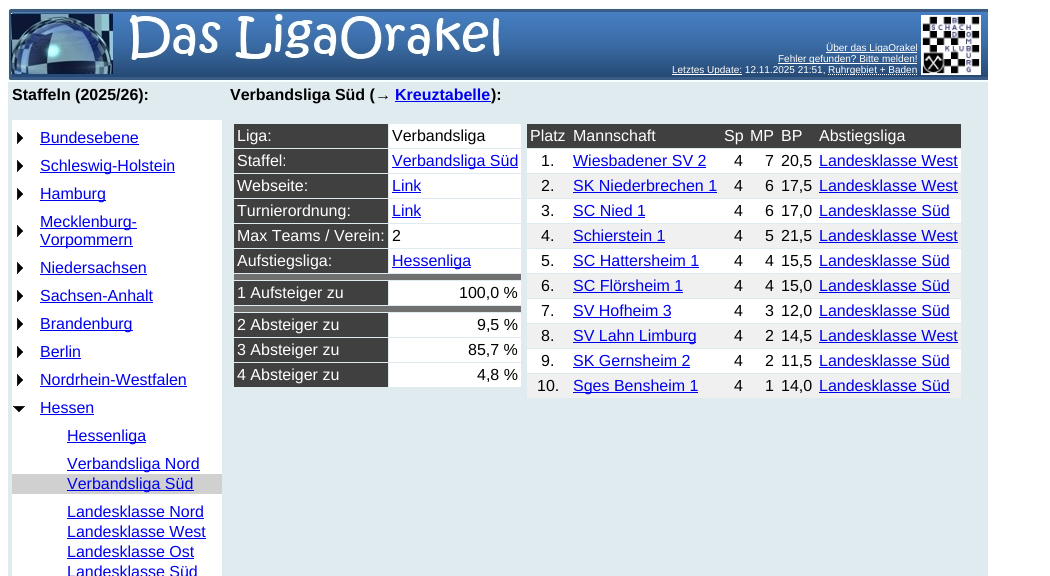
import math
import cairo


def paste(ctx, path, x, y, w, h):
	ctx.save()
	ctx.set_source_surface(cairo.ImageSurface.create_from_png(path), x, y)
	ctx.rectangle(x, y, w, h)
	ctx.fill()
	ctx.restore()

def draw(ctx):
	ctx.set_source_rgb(1, 1, 1)
	ctx.paint()
	ctx.set_source_rgb(0.878, 0.918, 0.941)
	ctx.rectangle(8, 82, 980, 494)
	ctx.fill()
	paste(ctx, 'media/1.png', 8, 8, 980, 74)
	ctx.set_source_rgb(1, 1, 1)
	ctx.rectangle(826, 52, 91, 1)
	ctx.fill()
	ctx.select_font_face('Liberation Sans')
	ctx.set_font_size(10)
	ctx.move_to(826, 51)
	ctx.show_text('Über das LigaOrakel')
	ctx.rectangle(778, 63, 139, 1)
	ctx.fill()
	ctx.move_to(778, 62)
	ctx.show_text('Fehler gefunden? Bitte melden!')
	ctx.rectangle(672, 74, 70, 1)
	ctx.fill()
	ctx.move_to(672, 73)
	ctx.show_text('Letztes Update: 12.11.2025 21:51,')
	ctx.new_path()
	ctx.move_to(828, 74.5)
	ctx.line_to(917.5, 74.5)
	ctx.set_line_width(1)
	ctx.set_dash([1, 1])
	ctx.stroke()
	ctx.move_to(828, 73)
	ctx.show_text('Ruhrgebiet + Baden')
	paste(ctx, 'media/2.png', 921, 15, 60, 60)
	ctx.select_font_face('Liberation Sans', cairo.FONT_SLANT_NORMAL, cairo.FONT_WEIGHT_BOLD)
	ctx.set_font_size(16)
	ctx.set_source_rgb(0, 0, 0)
	ctx.move_to(12, 100)
	ctx.show_text('Staffeln (2025/26):')
	ctx.set_source_rgb(1, 1, 1)
	ctx.rectangle(12, 120, 210, 8)
	ctx.fill()
	ctx.set_source_rgb(0.98, 0.98, 0.98)
	ctx.rectangle(19, 123, 1, 1)
	ctx.rectangle(46, 123, 1, 1)
	ctx.rectangle(73, 123, 1, 1)
	ctx.fill()
	ctx.set_source_rgb(1, 1, 1)
	ctx.rectangle(12, 128, 210, 20)
	ctx.fill()
	paste(ctx, 'media/3.png', 17, 132, 6, 12)
	ctx.select_font_face('Liberation Sans')
	ctx.set_source_rgb(0, 0, 0.933)
	ctx.move_to(40, 143)
	ctx.show_text('Bundesebene')
	ctx.rectangle(40, 144, 99, 1)
	ctx.fill()
	ctx.set_source_rgb(1, 1, 1)
	ctx.rectangle(12, 148, 210, 8)
	ctx.fill()
	ctx.set_source_rgb(0.98, 0.98, 0.98)
	ctx.rectangle(19, 151, 1, 1)
	ctx.rectangle(46, 151, 1, 1)
	ctx.rectangle(73, 151, 1, 1)
	ctx.fill()
	ctx.set_source_rgb(1, 1, 1)
	ctx.rectangle(12, 156, 210, 20)
	ctx.fill()
	paste(ctx, 'media/3.png', 17, 160, 6, 12)
	ctx.set_source_rgb(0, 0, 0.933)
	ctx.rectangle(40, 172, 135, 1)
	ctx.fill()
	ctx.move_to(40, 171)
	ctx.show_text('Schleswig-Holstein')
	ctx.set_source_rgb(1, 1, 1)
	ctx.rectangle(12, 176, 210, 8)
	ctx.fill()
	ctx.set_source_rgb(0.98, 0.98, 0.98)
	ctx.rectangle(19, 179, 1, 1)
	ctx.rectangle(46, 179, 1, 1)
	ctx.rectangle(73, 179, 1, 1)
	ctx.fill()
	ctx.set_source_rgb(1, 1, 1)
	ctx.rectangle(12, 184, 210, 20)
	ctx.fill()
	paste(ctx, 'media/3.png', 17, 188, 6, 12)
	ctx.set_source_rgb(0, 0, 0.933)
	ctx.rectangle(40, 200, 66, 1)
	ctx.fill()
	ctx.move_to(40, 199)
	ctx.show_text('Hamburg')
	ctx.set_source_rgb(1, 1, 1)
	ctx.rectangle(12, 204, 210, 8)
	ctx.fill()
	ctx.set_source_rgb(0.98, 0.98, 0.98)
	ctx.rectangle(19, 207, 1, 1)
	ctx.rectangle(46, 207, 1, 1)
	ctx.rectangle(73, 207, 1, 1)
	ctx.fill()
	ctx.set_source_rgb(1, 1, 1)
	ctx.rectangle(12, 212, 210, 38)
	ctx.fill()
	paste(ctx, 'media/3.png', 17, 225, 6, 12)
	ctx.set_source_rgb(0, 0, 0.933)
	ctx.rectangle(40, 228, 97, 1)
	ctx.fill()
	ctx.move_to(40, 227)
	ctx.show_text('Mecklenburg-')
	ctx.rectangle(40, 246, 93, 1)
	ctx.fill()
	ctx.move_to(40, 245)
	ctx.show_text('Vorpommern')
	ctx.set_source_rgb(1, 1, 1)
	ctx.rectangle(12, 250, 210, 8)
	ctx.fill()
	ctx.set_source_rgb(0.98, 0.98, 0.98)
	ctx.rectangle(19, 253, 1, 1)
	ctx.rectangle(46, 253, 1, 1)
	ctx.rectangle(73, 253, 1, 1)
	ctx.fill()
	ctx.set_source_rgb(1, 1, 1)
	ctx.rectangle(12, 258, 210, 20)
	ctx.fill()
	paste(ctx, 'media/3.png', 17, 262, 6, 12)
	ctx.set_source_rgb(0, 0, 0.933)
	ctx.move_to(40, 273)
	ctx.show_text('Niedersachsen')
	ctx.rectangle(40, 274, 107, 1)
	ctx.fill()
	ctx.set_source_rgb(1, 1, 1)
	ctx.rectangle(12, 278, 210, 8)
	ctx.fill()
	ctx.set_source_rgb(0.98, 0.98, 0.98)
	ctx.rectangle(19, 281, 1, 1)
	ctx.rectangle(46, 281, 1, 1)
	ctx.rectangle(73, 281, 1, 1)
	ctx.fill()
	ctx.set_source_rgb(1, 1, 1)
	ctx.rectangle(12, 286, 210, 20)
	ctx.fill()
	paste(ctx, 'media/3.png', 17, 290, 6, 12)
	ctx.set_source_rgb(0, 0, 0.933)
	ctx.move_to(40, 301)
	ctx.show_text('Sachsen-Anhalt')
	ctx.rectangle(40, 302, 113, 1)
	ctx.fill()
	ctx.set_source_rgb(1, 1, 1)
	ctx.rectangle(12, 306, 210, 8)
	ctx.fill()
	ctx.set_source_rgb(0.98, 0.98, 0.98)
	ctx.rectangle(19, 309, 1, 1)
	ctx.rectangle(46, 309, 1, 1)
	ctx.rectangle(73, 309, 1, 1)
	ctx.fill()
	ctx.set_source_rgb(1, 1, 1)
	ctx.rectangle(12, 314, 210, 20)
	ctx.fill()
	paste(ctx, 'media/3.png', 17, 318, 6, 12)
	ctx.set_source_rgb(0, 0, 0.933)
	ctx.rectangle(40, 330, 93, 1)
	ctx.fill()
	ctx.move_to(40, 329)
	ctx.show_text('Brandenburg')
	ctx.set_source_rgb(1, 1, 1)
	ctx.rectangle(12, 334, 210, 8)
	ctx.fill()
	ctx.set_source_rgb(0.98, 0.98, 0.98)
	ctx.rectangle(19, 337, 1, 1)
	ctx.rectangle(46, 337, 1, 1)
	ctx.rectangle(73, 337, 1, 1)
	ctx.fill()
	ctx.set_source_rgb(1, 1, 1)
	ctx.rectangle(12, 342, 210, 20)
	ctx.fill()
	paste(ctx, 'media/3.png', 17, 346, 6, 12)
	ctx.set_source_rgb(0, 0, 0.933)
	ctx.move_to(40, 357)
	ctx.show_text('Berlin')
	ctx.rectangle(40, 358, 41, 1)
	ctx.fill()
	ctx.set_source_rgb(1, 1, 1)
	ctx.rectangle(12, 362, 210, 8)
	ctx.fill()
	ctx.set_source_rgb(0.98, 0.98, 0.98)
	ctx.rectangle(19, 365, 1, 1)
	ctx.rectangle(46, 365, 1, 1)
	ctx.rectangle(73, 365, 1, 1)
	ctx.fill()
	ctx.set_source_rgb(1, 1, 1)
	ctx.rectangle(12, 370, 210, 20)
	ctx.fill()
	paste(ctx, 'media/3.png', 17, 374, 6, 12)
	ctx.set_source_rgb(0, 0, 0.933)
	ctx.move_to(40, 385)
	ctx.show_text('Nordrhein-Westfalen')
	ctx.rectangle(40, 386, 147, 1)
	ctx.fill()
	ctx.set_source_rgb(1, 1, 1)
	ctx.rectangle(12, 390, 210, 8)
	ctx.fill()
	ctx.set_source_rgb(0.98, 0.98, 0.98)
	ctx.rectangle(19, 393, 1, 1)
	ctx.rectangle(46, 393, 1, 1)
	ctx.rectangle(73, 393, 1, 1)
	ctx.fill()
	ctx.set_source_rgb(1, 1, 1)
	ctx.rectangle(12, 398, 210, 20)
	ctx.fill()
	paste(ctx, 'media/4.png', 13, 406, 12, 6)
	ctx.set_source_rgb(0, 0, 0.933)
	ctx.move_to(40, 413)
	ctx.show_text('Hessen')
	ctx.rectangle(40, 414, 54, 1)
	ctx.fill()
	ctx.set_source_rgb(1, 1, 1)
	ctx.rectangle(12, 418, 210, 8)
	ctx.fill()
	ctx.set_source_rgb(0.98, 0.98, 0.98)
	ctx.rectangle(19, 421, 1, 1)
	ctx.rectangle(46, 421, 1, 1)
	ctx.rectangle(73, 421, 1, 1)
	ctx.fill()
	ctx.set_source_rgb(1, 1, 1)
	ctx.rectangle(12, 426, 210, 20)
	ctx.fill()
	ctx.set_source_rgb(0.98, 0.98, 0.98)
	ctx.rectangle(19, 435, 1, 1)
	ctx.rectangle(46, 435, 1, 1)
	ctx.fill()
	ctx.set_source_rgb(0, 0, 0.933)
	ctx.rectangle(67, 442, 79, 1)
	ctx.fill()
	ctx.move_to(67, 441)
	ctx.show_text('Hessenliga')
	ctx.set_source_rgb(1, 1, 1)
	ctx.rectangle(12, 446, 210, 8)
	ctx.fill()
	ctx.set_source_rgb(0.98, 0.98, 0.98)
	ctx.rectangle(19, 449, 1, 1)
	ctx.rectangle(46, 449, 1, 1)
	ctx.rectangle(73, 449, 1, 1)
	ctx.fill()
	ctx.set_source_rgb(1, 1, 1)
	ctx.rectangle(12, 454, 210, 20)
	ctx.fill()
	ctx.set_source_rgb(0.98, 0.98, 0.98)
	ctx.rectangle(19, 463, 1, 1)
	ctx.rectangle(46, 463, 1, 1)
	ctx.fill()
	ctx.set_source_rgb(0, 0, 0.933)
	ctx.rectangle(67, 470, 133, 1)
	ctx.fill()
	ctx.move_to(67, 469)
	ctx.show_text('Verbandsliga Nord')
	ctx.set_source_rgb(0.816, 0.816, 0.816)
	ctx.rectangle(12, 474, 210, 20)
	ctx.fill()
	ctx.set_source_rgb(0.8, 0.8, 0.8)
	ctx.rectangle(19, 483, 1, 1)
	ctx.rectangle(46, 483, 1, 1)
	ctx.fill()
	ctx.set_source_rgb(0, 0, 0.933)
	ctx.rectangle(67, 490, 127, 1)
	ctx.fill()
	ctx.move_to(67, 489)
	ctx.show_text('Verbandsliga Süd')
	ctx.set_source_rgb(1, 1, 1)
	ctx.rectangle(12, 494, 210, 8)
	ctx.fill()
	ctx.set_source_rgb(0.98, 0.98, 0.98)
	ctx.rectangle(19, 497, 1, 1)
	ctx.rectangle(46, 497, 1, 1)
	ctx.rectangle(73, 497, 1, 1)
	ctx.fill()
	ctx.set_source_rgb(1, 1, 1)
	ctx.rectangle(12, 502, 210, 20)
	ctx.fill()
	ctx.set_source_rgb(0.98, 0.98, 0.98)
	ctx.rectangle(19, 511, 1, 1)
	ctx.rectangle(46, 511, 1, 1)
	ctx.fill()
	ctx.set_source_rgb(0, 0, 0.933)
	ctx.move_to(67, 517)
	ctx.show_text('Landesklasse Nord')
	ctx.rectangle(67, 518, 137, 1)
	ctx.fill()
	ctx.set_source_rgb(1, 1, 1)
	ctx.rectangle(12, 522, 210, 20)
	ctx.fill()
	ctx.set_source_rgb(0.98, 0.98, 0.98)
	ctx.rectangle(19, 531, 1, 1)
	ctx.rectangle(46, 531, 1, 1)
	ctx.fill()
	ctx.set_source_rgb(0, 0, 0.933)
	ctx.move_to(67, 537)
	ctx.show_text('Landesklasse West')
	ctx.rectangle(67, 538, 139, 1)
	ctx.fill()
	ctx.set_source_rgb(1, 1, 1)
	ctx.rectangle(12, 542, 210, 20)
	ctx.fill()
	ctx.set_source_rgb(0.98, 0.98, 0.98)
	ctx.rectangle(19, 551, 1, 1)
	ctx.rectangle(46, 551, 1, 1)
	ctx.fill()
	ctx.set_source_rgb(0, 0, 0.933)
	ctx.move_to(67, 557)
	ctx.show_text('Landesklasse Ost')
	ctx.rectangle(67, 558, 127, 1)
	ctx.fill()
	ctx.set_source_rgb(1, 1, 1)
	ctx.rectangle(12, 562, 210, 14)
	ctx.fill()
	ctx.set_source_rgb(0.98, 0.98, 0.98)
	ctx.rectangle(19, 571, 1, 1)
	ctx.rectangle(46, 571, 1, 1)
	ctx.fill()
	ctx.set_source_rgb(0, 0, 0.933)
	ctx.move_to(67, 577)
	ctx.show_text('Landesklasse Süd')
	ctx.select_font_face('Liberation Sans', cairo.FONT_SLANT_NORMAL, cairo.FONT_WEIGHT_BOLD)
	ctx.set_source_rgb(0, 0, 0)
	ctx.move_to(230, 100)
	ctx.show_text('Verbandsliga Süd (→')
	ctx.set_source_rgb(0, 0, 0.933)
	ctx.move_to(395, 100)
	ctx.show_text('Kreuztabelle')
	ctx.rectangle(395, 101, 96, 1)
	ctx.fill()
	ctx.set_source_rgb(0, 0, 0)
	ctx.move_to(491, 100)
	ctx.show_text('):')
	ctx.set_source_rgb(0.251, 0.251, 0.251)
	ctx.rectangle(234, 124, 154, 24)
	ctx.fill()
	ctx.select_font_face('Liberation Sans')
	ctx.set_source_rgb(1, 1, 1)
	ctx.move_to(237, 141)
	ctx.show_text('Liga:')
	ctx.rectangle(389, 124, 132, 24)
	ctx.fill()
	ctx.set_source_rgb(0, 0, 0)
	ctx.move_to(392, 141)
	ctx.show_text('Verbandsliga')
	ctx.set_source_rgb(0.251, 0.251, 0.251)
	ctx.rectangle(234, 149, 154, 24)
	ctx.fill()
	ctx.set_source_rgb(1, 1, 1)
	ctx.move_to(237, 166)
	ctx.show_text('Staffel:')
	ctx.rectangle(389, 149, 132, 24)
	ctx.fill()
	ctx.set_source_rgb(0, 0, 0.933)
	ctx.rectangle(392, 167, 126, 1)
	ctx.fill()
	ctx.move_to(392, 166)
	ctx.show_text('Verbandsliga Süd')
	ctx.set_source_rgb(0.251, 0.251, 0.251)
	ctx.rectangle(234, 174, 154, 24)
	ctx.fill()
	ctx.set_source_rgb(1, 1, 1)
	ctx.move_to(237, 191)
	ctx.show_text('Webseite:')
	ctx.rectangle(389, 174, 132, 24)
	ctx.fill()
	ctx.set_source_rgb(0, 0, 0.933)
	ctx.move_to(392, 191)
	ctx.show_text('Link')
	ctx.rectangle(392, 192, 29, 1)
	ctx.fill()
	ctx.set_source_rgb(0.251, 0.251, 0.251)
	ctx.rectangle(234, 199, 154, 24)
	ctx.fill()
	ctx.set_source_rgb(1, 1, 1)
	ctx.move_to(237, 216)
	ctx.show_text('Turnierordnung:')
	ctx.rectangle(389, 199, 132, 24)
	ctx.fill()
	ctx.set_source_rgb(0, 0, 0.933)
	ctx.move_to(392, 216)
	ctx.show_text('Link')
	ctx.rectangle(392, 217, 29, 1)
	ctx.fill()
	ctx.set_source_rgb(0.251, 0.251, 0.251)
	ctx.rectangle(234, 224, 154, 24)
	ctx.fill()
	ctx.set_source_rgb(1, 1, 1)
	ctx.move_to(237, 241)
	ctx.show_text('Max Teams / Verein:')
	ctx.rectangle(389, 224, 132, 24)
	ctx.fill()
	ctx.set_source_rgb(0, 0, 0)
	ctx.move_to(392, 241)
	ctx.show_text('2')
	ctx.set_source_rgb(0.251, 0.251, 0.251)
	ctx.rectangle(234, 249, 154, 24)
	ctx.fill()
	ctx.set_source_rgb(1, 1, 1)
	ctx.move_to(237, 266)
	ctx.show_text('Aufstiegsliga:')
	ctx.rectangle(389, 249, 132, 24)
	ctx.fill()
	ctx.set_source_rgb(0, 0, 0.933)
	ctx.rectangle(392, 267, 79, 1)
	ctx.fill()
	ctx.move_to(392, 266)
	ctx.show_text('Hessenliga')
	ctx.set_source_rgb(0.439, 0.439, 0.439)
	ctx.rectangle(234, 274, 287, 6)
	ctx.fill()
	ctx.set_source_rgb(0.251, 0.251, 0.251)
	ctx.rectangle(234, 281, 154, 24)
	ctx.fill()
	ctx.set_source_rgb(1, 1, 1)
	ctx.move_to(237, 298)
	ctx.show_text('1 Aufsteiger zu')
	ctx.rectangle(389, 281, 132, 24)
	ctx.fill()
	ctx.set_source_rgb(0, 0, 0)
	ctx.move_to(459, 298)
	ctx.show_text('100,0 %')
	ctx.set_source_rgb(0.439, 0.439, 0.439)
	ctx.rectangle(234, 306, 287, 6)
	ctx.fill()
	ctx.set_source_rgb(0.251, 0.251, 0.251)
	ctx.rectangle(234, 313, 154, 24)
	ctx.fill()
	ctx.set_source_rgb(1, 1, 1)
	ctx.move_to(237, 330)
	ctx.show_text('2 Absteiger zu')
	ctx.rectangle(389, 313, 132, 24)
	ctx.fill()
	ctx.set_source_rgb(0, 0, 0)
	ctx.move_to(477, 330)
	ctx.show_text('9,5 %')
	ctx.set_source_rgb(0.251, 0.251, 0.251)
	ctx.rectangle(234, 338, 154, 24)
	ctx.fill()
	ctx.set_source_rgb(1, 1, 1)
	ctx.move_to(237, 355)
	ctx.show_text('3 Absteiger zu')
	ctx.rectangle(389, 338, 132, 24)
	ctx.fill()
	ctx.set_source_rgb(0, 0, 0)
	ctx.move_to(468, 355)
	ctx.show_text('85,7 %')
	ctx.set_source_rgb(0.251, 0.251, 0.251)
	ctx.rectangle(234, 363, 154, 24)
	ctx.fill()
	ctx.set_source_rgb(1, 1, 1)
	ctx.move_to(237, 380)
	ctx.show_text('4 Absteiger zu')
	ctx.rectangle(389, 363, 132, 24)
	ctx.fill()
	ctx.set_source_rgb(0, 0, 0)
	ctx.move_to(477, 380)
	ctx.show_text('4,8 %')
	ctx.set_source_rgb(0.251, 0.251, 0.251)
	ctx.rectangle(527, 124, 434, 24)
	ctx.fill()
	ctx.set_source_rgb(1, 1, 1)
	for x, y, s in [
		(530, 141, 'Platz'),
		(573, 141, 'Mannschaft'),
		(724, 141, 'Sp'),
		(750, 141, 'MP'),
		(781, 141, 'BP'),
		(819, 141, 'Abstiegsliga'),
	]:
		ctx.move_to(x, y)
		ctx.show_text(s)
	ctx.rectangle(527, 149, 434, 24)
	ctx.fill()
	ctx.set_source_rgb(0, 0, 0)
	ctx.move_to(541, 166)
	ctx.show_text('1.')
	ctx.set_source_rgb(0, 0, 0.933)
	ctx.move_to(573, 166)
	ctx.show_text('Wiesbadener SV 2')
	ctx.rectangle(573, 167, 133, 1)
	ctx.fill()
	ctx.set_source_rgb(0, 0, 0)
	for x, y, s in [
		(734, 166, '4'),
		(765, 166, '7'),
		(781, 166, '20,5'),
	]:
		ctx.move_to(x, y)
		ctx.show_text(s)
	ctx.set_source_rgb(0, 0, 0.933)
	ctx.move_to(819, 166)
	ctx.show_text('Landesklasse West')
	ctx.rectangle(819, 167, 139, 1)
	ctx.fill()
	ctx.set_source_rgb(0.941, 0.941, 0.941)
	ctx.rectangle(527, 174, 434, 24)
	ctx.fill()
	ctx.set_source_rgb(0, 0, 0)
	ctx.move_to(541, 191)
	ctx.show_text('2.')
	ctx.set_source_rgb(0, 0, 0.933)
	ctx.move_to(573, 191)
	ctx.show_text('SK Niederbrechen 1')
	ctx.rectangle(573, 192, 144, 1)
	ctx.fill()
	ctx.set_source_rgb(0, 0, 0)
	for x, y, s in [
		(734, 191, '4'),
		(765, 191, '6'),
		(781, 191, '17,5'),
	]:
		ctx.move_to(x, y)
		ctx.show_text(s)
	ctx.set_source_rgb(0, 0, 0.933)
	ctx.move_to(819, 191)
	ctx.show_text('Landesklasse West')
	ctx.rectangle(819, 192, 139, 1)
	ctx.fill()
	ctx.set_source_rgb(1, 1, 1)
	ctx.rectangle(527, 199, 434, 24)
	ctx.fill()
	ctx.set_source_rgb(0, 0, 0)
	ctx.move_to(541, 216)
	ctx.show_text('3.')
	ctx.set_source_rgb(0, 0, 0.933)
	ctx.move_to(573, 216)
	ctx.show_text('SC Nied 1')
	ctx.rectangle(573, 217, 72, 1)
	ctx.fill()
	ctx.set_source_rgb(0, 0, 0)
	for x, y, s in [
		(734, 216, '4'),
		(765, 216, '6'),
		(781, 216, '17,0'),
	]:
		ctx.move_to(x, y)
		ctx.show_text(s)
	ctx.set_source_rgb(0, 0, 0.933)
	ctx.move_to(819, 216)
	ctx.show_text('Landesklasse Süd')
	ctx.rectangle(819, 217, 131, 1)
	ctx.fill()
	ctx.set_source_rgb(0.941, 0.941, 0.941)
	ctx.rectangle(527, 224, 434, 24)
	ctx.fill()
	ctx.set_source_rgb(0, 0, 0)
	ctx.move_to(541, 241)
	ctx.show_text('4.')
	ctx.set_source_rgb(0, 0, 0.933)
	ctx.move_to(573, 241)
	ctx.show_text('Schierstein 1')
	ctx.rectangle(573, 242, 92, 1)
	ctx.fill()
	ctx.set_source_rgb(0, 0, 0)
	for x, y, s in [
		(734, 241, '4'),
		(765, 241, '5'),
		(781, 241, '21,5'),
	]:
		ctx.move_to(x, y)
		ctx.show_text(s)
	ctx.set_source_rgb(0, 0, 0.933)
	ctx.move_to(819, 241)
	ctx.show_text('Landesklasse West')
	ctx.rectangle(819, 242, 139, 1)
	ctx.fill()
	ctx.set_source_rgb(1, 1, 1)
	ctx.rectangle(527, 249, 434, 24)
	ctx.fill()
	ctx.set_source_rgb(0, 0, 0)
	ctx.move_to(541, 266)
	ctx.show_text('5.')
	ctx.set_source_rgb(0, 0, 0.933)
	ctx.move_to(573, 266)
	ctx.show_text('SC Hattersheim 1')
	ctx.rectangle(573, 267, 126, 1)
	ctx.fill()
	ctx.set_source_rgb(0, 0, 0)
	for x, y, s in [
		(734, 266, '4'),
		(765, 266, '4'),
		(781, 266, '15,5'),
	]:
		ctx.move_to(x, y)
		ctx.show_text(s)
	ctx.set_source_rgb(0, 0, 0.933)
	ctx.move_to(819, 266)
	ctx.show_text('Landesklasse Süd')
	ctx.rectangle(819, 267, 131, 1)
	ctx.fill()
	ctx.set_source_rgb(0.941, 0.941, 0.941)
	ctx.rectangle(527, 274, 434, 24)
	ctx.fill()
	ctx.set_source_rgb(0, 0, 0)
	ctx.move_to(541, 291)
	ctx.show_text('6.')
	ctx.set_source_rgb(0, 0, 0.933)
	ctx.move_to(573, 291)
	ctx.show_text('SC Flörsheim 1')
	ctx.rectangle(573, 292, 110, 1)
	ctx.fill()
	ctx.set_source_rgb(0, 0, 0)
	for x, y, s in [
		(734, 291, '4'),
		(765, 291, '4'),
		(781, 291, '15,0'),
	]:
		ctx.move_to(x, y)
		ctx.show_text(s)
	ctx.set_source_rgb(0, 0, 0.933)
	ctx.move_to(819, 291)
	ctx.show_text('Landesklasse Süd')
	ctx.rectangle(819, 292, 131, 1)
	ctx.fill()
	ctx.set_source_rgb(1, 1, 1)
	ctx.rectangle(527, 299, 434, 24)
	ctx.fill()
	ctx.set_source_rgb(0, 0, 0)
	ctx.move_to(541, 316)
	ctx.show_text('7.')
	ctx.set_source_rgb(0, 0, 0.933)
	ctx.move_to(573, 316)
	ctx.show_text('SV Hofheim 3')
	ctx.rectangle(573, 317, 98, 1)
	ctx.fill()
	ctx.set_source_rgb(0, 0, 0)
	for x, y, s in [
		(734, 316, '4'),
		(765, 316, '3'),
		(781, 316, '12,0'),
	]:
		ctx.move_to(x, y)
		ctx.show_text(s)
	ctx.set_source_rgb(0, 0, 0.933)
	ctx.move_to(819, 316)
	ctx.show_text('Landesklasse Süd')
	ctx.rectangle(819, 317, 131, 1)
	ctx.fill()
	ctx.set_source_rgb(0.941, 0.941, 0.941)
	ctx.rectangle(527, 324, 434, 24)
	ctx.fill()
	ctx.set_source_rgb(0, 0, 0)
	ctx.move_to(541, 341)
	ctx.show_text('8.')
	ctx.set_source_rgb(0, 0, 0.933)
	ctx.rectangle(573, 342, 123, 1)
	ctx.fill()
	ctx.move_to(573, 341)
	ctx.show_text('SV Lahn Limburg')
	ctx.set_source_rgb(0, 0, 0)
	for x, y, s in [
		(734, 341, '4'),
		(765, 341, '2'),
		(781, 341, '14,5'),
	]:
		ctx.move_to(x, y)
		ctx.show_text(s)
	ctx.set_source_rgb(0, 0, 0.933)
	ctx.move_to(819, 341)
	ctx.show_text('Landesklasse West')
	ctx.rectangle(819, 342, 139, 1)
	ctx.fill()
	ctx.set_source_rgb(1, 1, 1)
	ctx.rectangle(527, 349, 434, 24)
	ctx.fill()
	ctx.set_source_rgb(0, 0, 0)
	ctx.move_to(541, 366)
	ctx.show_text('9.')
	ctx.set_source_rgb(0, 0, 0.933)
	ctx.move_to(573, 366)
	ctx.show_text('SK Gernsheim 2')
	ctx.rectangle(573, 367, 117, 1)
	ctx.fill()
	ctx.set_source_rgb(0, 0, 0)
	for x, y, s in [
		(734, 366, '4'),
		(765, 366, '2'),
		(781, 366, '11,5'),
	]:
		ctx.move_to(x, y)
		ctx.show_text(s)
	ctx.set_source_rgb(0, 0, 0.933)
	ctx.move_to(819, 366)
	ctx.show_text('Landesklasse Süd')
	ctx.rectangle(819, 367, 131, 1)
	ctx.fill()
	ctx.set_source_rgb(0.941, 0.941, 0.941)
	ctx.rectangle(527, 374, 434, 24)
	ctx.fill()
	ctx.set_source_rgb(0, 0, 0)
	ctx.move_to(537, 391)
	ctx.show_text('10.')
	ctx.set_source_rgb(0, 0, 0.933)
	ctx.rectangle(573, 392, 125, 1)
	ctx.fill()
	ctx.move_to(573, 391)
	ctx.show_text('Sges Bensheim 1')
	ctx.set_source_rgb(0, 0, 0)
	for x, y, s in [
		(734, 391, '4'),
		(765, 391, '1'),
		(781, 391, '14,0'),
	]:
		ctx.move_to(x, y)
		ctx.show_text(s)
	ctx.set_source_rgb(0, 0, 0.933)
	ctx.move_to(819, 391)
	ctx.show_text('Landesklasse Süd')
	ctx.rectangle(819, 392, 131, 1)
	ctx.fill()


surface = cairo.ImageSurface(cairo.FORMAT_RGB24, 1050, 576)
ctx = cairo.Context(surface)
options = cairo.FontOptions()
options.set_hint_metrics(cairo.HINT_METRICS_OFF)
options.set_hint_style(cairo.HINT_STYLE_NONE)
ctx.set_font_options(options)
ctx.set_miter_limit(4)
draw(ctx)
surface.write_to_png('image.png')
